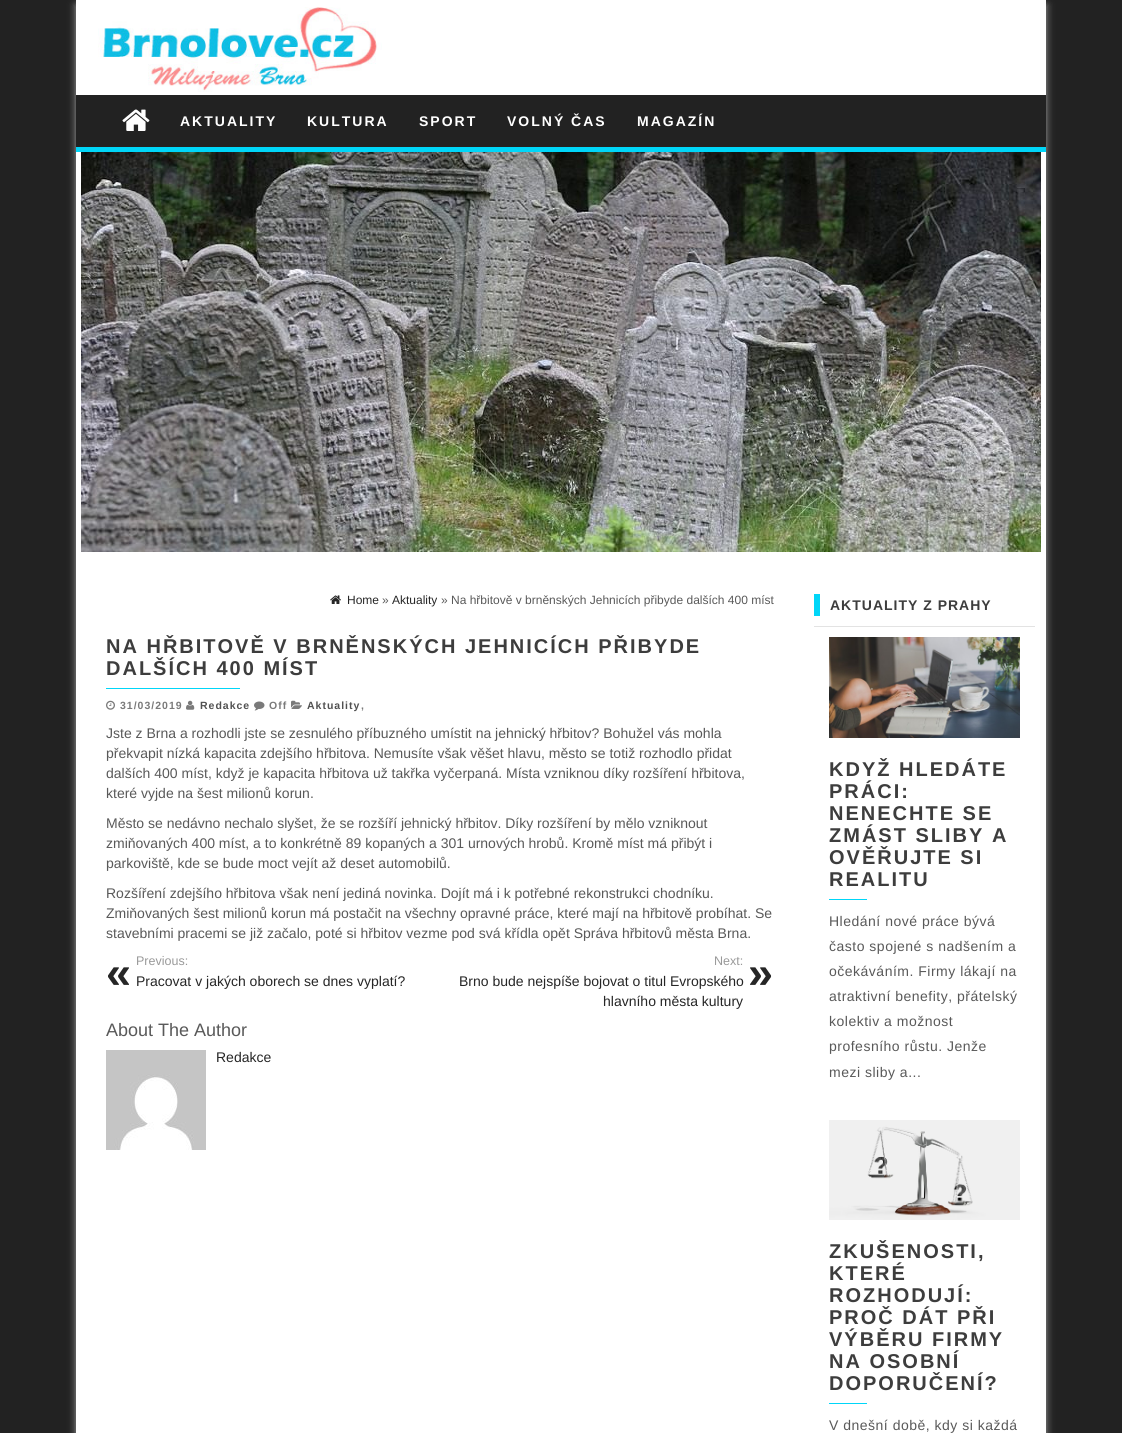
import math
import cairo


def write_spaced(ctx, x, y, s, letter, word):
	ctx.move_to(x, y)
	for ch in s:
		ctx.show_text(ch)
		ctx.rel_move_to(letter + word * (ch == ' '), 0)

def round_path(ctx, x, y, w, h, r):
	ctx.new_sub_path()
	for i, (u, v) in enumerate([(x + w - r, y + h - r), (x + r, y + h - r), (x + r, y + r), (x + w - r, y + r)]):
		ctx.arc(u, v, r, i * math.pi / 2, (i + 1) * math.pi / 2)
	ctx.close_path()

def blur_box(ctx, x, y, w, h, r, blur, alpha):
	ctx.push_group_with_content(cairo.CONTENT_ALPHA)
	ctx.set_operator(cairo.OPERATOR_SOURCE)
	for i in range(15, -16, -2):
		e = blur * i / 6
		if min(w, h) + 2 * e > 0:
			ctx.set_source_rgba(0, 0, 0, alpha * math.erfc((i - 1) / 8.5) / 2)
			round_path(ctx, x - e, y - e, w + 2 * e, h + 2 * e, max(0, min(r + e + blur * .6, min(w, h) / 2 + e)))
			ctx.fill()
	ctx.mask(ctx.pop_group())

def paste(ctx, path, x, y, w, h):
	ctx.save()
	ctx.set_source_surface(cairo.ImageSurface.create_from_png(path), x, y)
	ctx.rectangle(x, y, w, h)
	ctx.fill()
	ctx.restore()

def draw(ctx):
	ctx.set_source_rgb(0.133, 0.133, 0.133)
	ctx.paint()
	ctx.save()
	ctx.set_fill_rule(cairo.FILL_RULE_EVEN_ODD)
	ctx.new_path()
	ctx.move_to(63, 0)
	ctx.line_to(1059, 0)
	ctx.line_to(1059, 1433)
	ctx.line_to(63, 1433)
	ctx.close_path()
	ctx.move_to(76, 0)
	ctx.line_to(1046, 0)
	ctx.line_to(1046, 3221)
	ctx.line_to(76, 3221)
	ctx.close_path()
	ctx.clip()
	ctx.set_source_rgb(0.631, 0.631, 0.631)
	blur_box(ctx, 76, 5, 970, 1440, 0, 4, 1)
	ctx.restore()
	ctx.set_source_rgb(1, 1, 1)
	ctx.rectangle(76, 0, 970, 95)
	ctx.fill()
	paste(ctx, 'media/1.png', 98, 7, 284, 85)
	ctx.set_source_rgb(0, 0.839, 0.969)
	ctx.rectangle(76, 147, 970, 5)
	ctx.fill()
	paste(ctx, 'media/2.png', 122, 109, 28, 22)
	ctx.select_font_face('Liberation Sans', cairo.FONT_SLANT_NORMAL, cairo.FONT_WEIGHT_BOLD)
	ctx.set_font_size(14)
	ctx.set_source_rgb(1, 1, 1)
	for x, y, s in [
		(180, 126, 'AKTUALITY'),
		(307, 126, 'KULTURA'),
		(419, 126, 'SPORT'),
		(507, 126, 'VOLNÝ ČAS'),
		(637, 126, 'MAGAZÍN'),
	]:
		write_spaced(ctx, x, y, s, 2, 0)
	ctx.rectangle(76, 152, 970, 1281)
	ctx.fill()
	paste(ctx, 'media/3.png', 81, 152, 960, 400)
	paste(ctx, 'media/4.png', 330, 595, 11, 9)
	ctx.select_font_face('Liberation Sans')
	ctx.set_font_size(12)
	ctx.set_source_rgb(0.149, 0.149, 0.149)
	ctx.move_to(347, 604)
	ctx.show_text('Home')
	ctx.set_source_rgb(0.349, 0.349, 0.349)
	ctx.move_to(382, 604)
	ctx.show_text('»')
	ctx.set_source_rgb(0.149, 0.149, 0.149)
	ctx.move_to(392, 604)
	ctx.show_text('Aktuality')
	ctx.set_source_rgb(0.349, 0.349, 0.349)
	ctx.move_to(441, 604)
	ctx.show_text('» Na hřbitově v brněnských Jehnicích přibyde dalších 400 míst')
	ctx.select_font_face('Liberation Sans', cairo.FONT_SLANT_NORMAL, cairo.FONT_WEIGHT_BOLD)
	ctx.set_font_size(20)
	ctx.set_source_rgb(0.239, 0.239, 0.239)
	write_spaced(ctx, 106, 653, 'NA HŘBITOVĚ V BRNĚNSKÝCH JEHNICÍCH PŘIBYDE', 2, 0)
	write_spaced(ctx, 106, 675, 'DALŠÍCH 400 MÍST', 2, 0)
	ctx.set_source_rgb(0, 0.839, 0.969)
	ctx.rectangle(106, 688, 134, 1)
	ctx.fill()
	paste(ctx, 'media/5.png', 106, 700, 9, 10)
	ctx.set_font_size(10.5)
	ctx.set_source_rgb(0.478, 0.478, 0.478)
	write_spaced(ctx, 120, 709, '31/03/2019', 1, 0)
	paste(ctx, 'media/6.png', 186, 700, 9, 10)
	ctx.set_source_rgb(0.318, 0.318, 0.318)
	write_spaced(ctx, 200, 709, 'Redakce', 1, 0)
	paste(ctx, 'media/7.png', 254, 701, 11, 10)
	ctx.set_source_rgb(0.478, 0.478, 0.478)
	write_spaced(ctx, 269, 709, 'Off', 1, 0)
	paste(ctx, 'media/8.png', 291, 700, 11, 9)
	ctx.set_source_rgb(0.318, 0.318, 0.318)
	write_spaced(ctx, 307, 709, 'Aktuality', 1, 0)
	ctx.set_source_rgb(0.478, 0.478, 0.478)
	write_spaced(ctx, 361, 709, ',', 1, 0)
	ctx.select_font_face('Liberation Sans')
	ctx.set_font_size(14)
	ctx.set_source_rgb(0.349, 0.349, 0.349)
	for x, y, s in [
		(106, 738, 'Jste z Brna a rozhodli jste se zesnulého příbuzného umístit na jehnický hřbitov? Bohužel vás mohla'),
		(106, 758, 'překvapit nízká kapacita zdejšího hřbitova. Nemusíte však věšet hlavu, město se totiž rozhodlo přidat'),
		(106, 778, 'dalších 400 míst, když je kapacita hřbitova už takřka vyčerpaná. Místa vzniknou díky rozšíření hřbitova,'),
		(106, 798, 'které vyjde na šest milionů korun.'),
		(106, 828, 'Město se nedávno nechalo slyšet, že se rozšíří jehnický hřbitov. Díky rozšíření by mělo vzniknout'),
		(106, 848, 'zmiňovaných 400 míst, a to konkrétně 89 kopaných a 301 urnových hrobů. Kromě míst má přibýt i'),
		(106, 868, 'parkoviště, kde se bude moct vejít až deset automobilů.'),
		(106, 898, 'Rozšíření zdejšího hřbitova však není jediná novinka. Dojít má i k potřebné rekonstrukci chodníku.'),
		(106, 918, 'Zmiňovaných šest milionů korun má postačit na všechny opravné práce, které mají na hřbitově probíhat. Se'),
		(106, 938, 'stavebními pracemi se již začalo, poté si hřbitov vezme pod svá křídla opět Správa hřbitovů města Brna.'),
	]:
		ctx.move_to(x, y)
		ctx.show_text(s)
	ctx.set_font_size(12.5)
	ctx.set_source_rgb(0.6, 0.6, 0.6)
	ctx.move_to(136, 965)
	ctx.show_text('Previous:')
	ctx.select_font_face('Liberation Sans', cairo.FONT_SLANT_NORMAL, cairo.FONT_WEIGHT_BOLD)
	ctx.set_font_size(45)
	ctx.set_source_rgb(0.149, 0.149, 0.149)
	ctx.move_to(106, 988)
	ctx.show_text('«')
	ctx.select_font_face('Liberation Sans')
	ctx.set_font_size(14)
	ctx.move_to(136, 986)
	ctx.show_text('Pracovat v jakých oborech se dnes vyplatí?')
	ctx.set_font_size(12.5)
	ctx.set_source_rgb(0.6, 0.6, 0.6)
	ctx.move_to(714, 965)
	ctx.show_text('Next:')
	ctx.set_font_size(14)
	ctx.set_source_rgb(0.149, 0.149, 0.149)
	ctx.move_to(459, 986)
	ctx.show_text('Brno bude nejspíše bojovat o titul Evropského')
	ctx.select_font_face('Liberation Sans', cairo.FONT_SLANT_NORMAL, cairo.FONT_WEIGHT_BOLD)
	ctx.set_font_size(45)
	ctx.move_to(748, 988)
	ctx.show_text('»')
	ctx.select_font_face('Liberation Sans')
	ctx.set_font_size(14)
	ctx.move_to(603, 1006)
	ctx.show_text('hlavního města kultury')
	ctx.set_font_size(18)
	ctx.set_source_rgb(0.349, 0.349, 0.349)
	ctx.move_to(106, 1036)
	ctx.show_text('About The Author')
	paste(ctx, 'media/9.png', 106, 1050, 100, 100)
	ctx.set_font_size(14)
	ctx.set_source_rgb(0.149, 0.149, 0.149)
	ctx.move_to(216, 1062)
	ctx.show_text('Redakce')
	ctx.set_source_rgb(0.89, 0.89, 0.89)
	ctx.rectangle(814, 626, 221, 1)
	ctx.fill()
	ctx.set_source_rgb(0, 0.839, 0.969)
	ctx.rectangle(814, 594, 6, 22)
	ctx.fill()
	ctx.select_font_face('Liberation Sans', cairo.FONT_SLANT_NORMAL, cairo.FONT_WEIGHT_BOLD)
	ctx.set_source_rgb(0.239, 0.239, 0.239)
	write_spaced(ctx, 830, 610, 'AKTUALITY Z PRAHY', 1, 0)
	paste(ctx, 'media/10.png', 829, 637, 191, 101)
	ctx.set_font_size(20)
	for x, y, s in [
		(829, 776, 'KDYŽ HLEDÁTE'),
		(829, 798, 'PRÁCI:'),
		(829, 820, 'NENECHTE SE'),
		(829, 842, 'ZMÁST SLIBY A'),
		(829, 864, 'OVĚŘUJTE SI'),
		(829, 886, 'REALITU'),
	]:
		write_spaced(ctx, x, y, s, 2, 0)
	ctx.set_source_rgb(0, 0.839, 0.969)
	ctx.rectangle(829, 899, 38, 1)
	ctx.fill()
	ctx.select_font_face('Liberation Sans')
	ctx.set_font_size(14)
	ctx.set_source_rgb(0.349, 0.349, 0.349)
	for x, y, s in [
		(829, 926, 'Hledání nové práce bývá'),
		(829, 951, 'často spojené s nadšením a'),
		(829, 976, 'očekáváním. Firmy lákají na'),
		(829, 1001, 'atraktivní benefity, přátelský'),
		(829, 1026, 'kolektiv a možnost'),
		(829, 1051, 'profesního růstu. Jenže'),
		(829, 1077, 'mezi sliby a...'),
	]:
		write_spaced(ctx, x, y, s, 0.5, 0)
	paste(ctx, 'media/11.png', 829, 1120, 191, 100)
	ctx.select_font_face('Liberation Sans', cairo.FONT_SLANT_NORMAL, cairo.FONT_WEIGHT_BOLD)
	ctx.set_font_size(20)
	ctx.set_source_rgb(0.239, 0.239, 0.239)
	for x, y, s in [
		(829, 1258, 'ZKUŠENOSTI,'),
		(829, 1280, 'KTERÉ'),
		(829, 1302, 'ROZHODUJÍ:'),
		(829, 1324, 'PROČ DÁT PŘI'),
		(829, 1346, 'VÝBĚRU FIRMY'),
		(829, 1368, 'NA OSOBNÍ'),
		(829, 1390, 'DOPORUČENÍ?'),
	]:
		write_spaced(ctx, x, y, s, 2, 0)
	ctx.set_source_rgb(0, 0.839, 0.969)
	ctx.rectangle(829, 1403, 38, 1)
	ctx.fill()
	ctx.select_font_face('Liberation Sans')
	ctx.set_font_size(14)
	ctx.set_source_rgb(0.349, 0.349, 0.349)
	write_spaced(ctx, 829, 1430, 'V dnešní době, kdy si každá', 0.5, 0)


surface = cairo.ImageSurface(cairo.FORMAT_RGB24, 1122, 1433)
ctx = cairo.Context(surface)
options = cairo.FontOptions()
options.set_hint_metrics(cairo.HINT_METRICS_OFF)
options.set_hint_style(cairo.HINT_STYLE_NONE)
ctx.set_font_options(options)
ctx.set_miter_limit(4)
draw(ctx)
surface.write_to_png('image.png')
